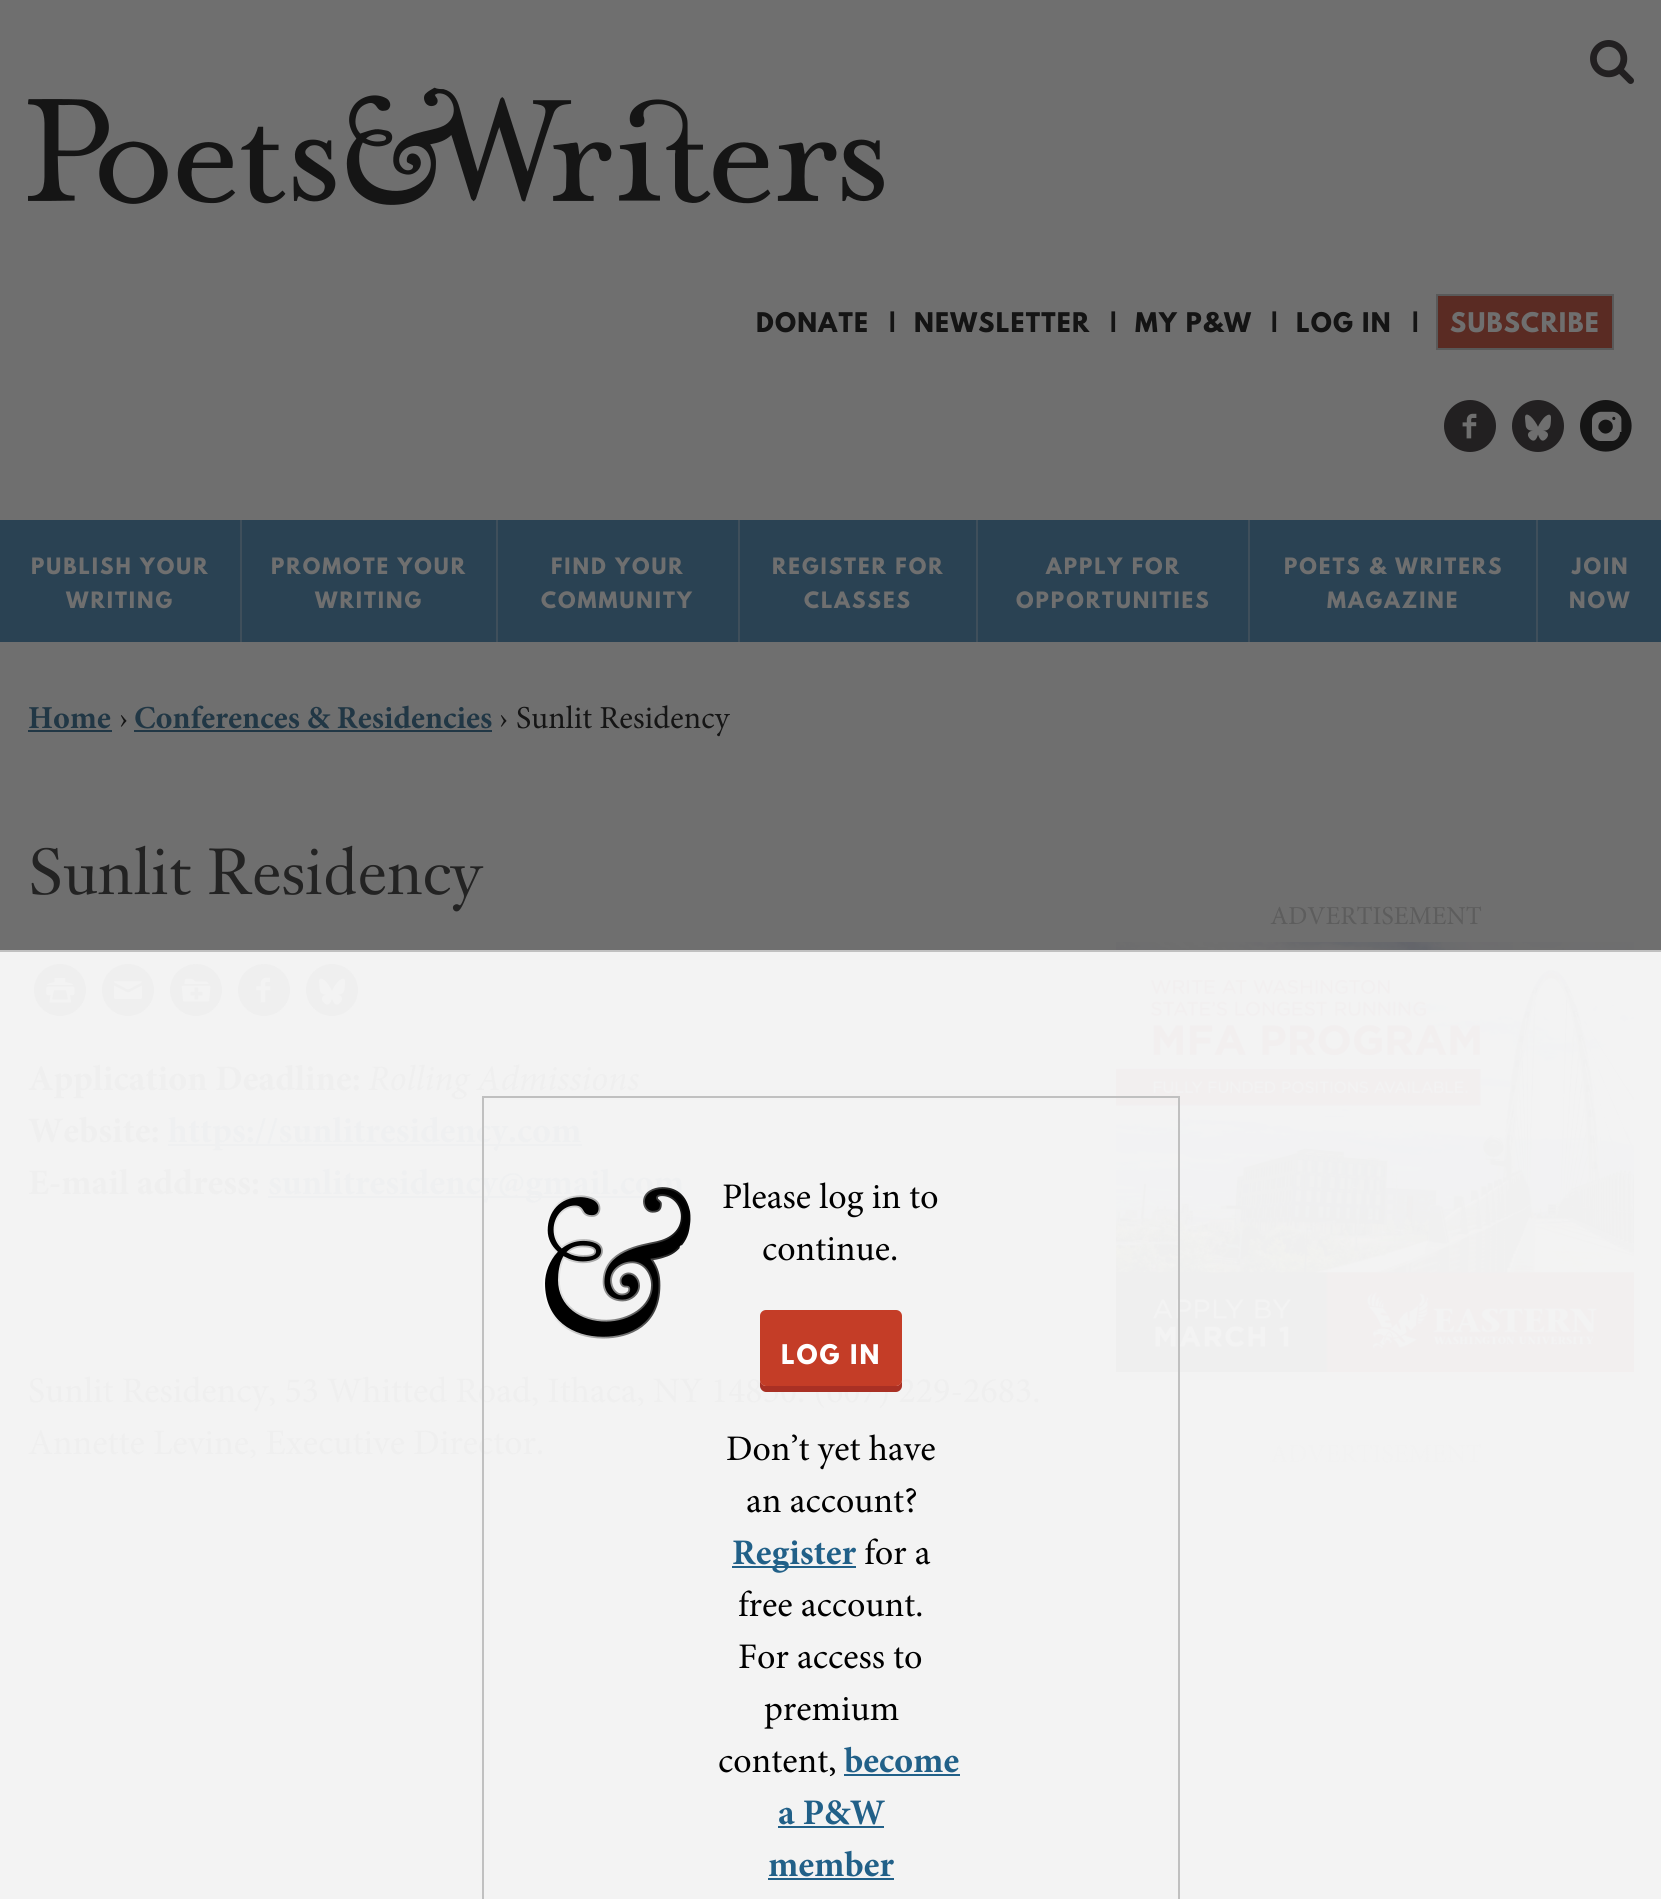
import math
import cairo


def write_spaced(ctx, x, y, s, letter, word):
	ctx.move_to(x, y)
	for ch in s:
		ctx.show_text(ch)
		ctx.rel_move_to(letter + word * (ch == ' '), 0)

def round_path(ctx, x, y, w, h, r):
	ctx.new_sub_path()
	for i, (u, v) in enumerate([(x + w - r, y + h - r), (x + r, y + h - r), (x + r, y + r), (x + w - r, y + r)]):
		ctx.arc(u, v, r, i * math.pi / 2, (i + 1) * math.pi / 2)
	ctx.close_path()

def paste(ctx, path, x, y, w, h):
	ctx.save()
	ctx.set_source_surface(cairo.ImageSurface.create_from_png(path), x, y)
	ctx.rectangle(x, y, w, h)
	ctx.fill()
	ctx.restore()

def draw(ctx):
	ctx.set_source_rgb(0.435, 0.435, 0.435)
	ctx.paint()
	ctx.set_source_rgb(0.953, 0.953, 0.953)
	ctx.rectangle(0, 952, 1661, 947)
	ctx.fill()
	paste(ctx, 'media/1.png', 28, 87, 856, 118)
	paste(ctx, 'media/2.png', 1590, 40, 44, 44)
	ctx.select_font_face('League Spartan', cairo.FONT_SLANT_NORMAL, cairo.FONT_WEIGHT_BOLD)
	ctx.set_font_size(24)
	ctx.set_source_rgb(0.082, 0.082, 0.082)
	write_spaced(ctx, 756, 332, 'DONATE', 1.25, 0)
	ctx.move_to(889, 332)
	ctx.show_text('|')
	write_spaced(ctx, 914, 332, 'NEWSLETTER', 1.25, 0)
	ctx.move_to(1110, 332)
	ctx.show_text('|')
	write_spaced(ctx, 1135, 332, 'MY P&W', 1.25, 0)
	ctx.move_to(1271, 332)
	ctx.show_text('|')
	write_spaced(ctx, 1296, 332, 'LOG IN', 1.25, 0)
	ctx.move_to(1412, 332)
	ctx.show_text('|')
	ctx.set_source_rgb(0.353, 0.169, 0.137)
	ctx.rectangle(1437, 295, 176, 54)
	ctx.fill_preserve()
	ctx.set_source_rgb(0.349, 0.349, 0.349)
	ctx.stroke()
	ctx.set_source_rgb(0.435, 0.435, 0.435)
	write_spaced(ctx, 1450, 332, 'SUBSCRIBE', 1.25, 0)
	paste(ctx, 'media/3.png', 1444, 400, 52, 52)
	paste(ctx, 'media/4.png', 1512, 400, 52, 52)
	paste(ctx, 'media/5.png', 1580, 400, 52, 52)
	ctx.set_source_rgb(0.165, 0.259, 0.325)
	ctx.rectangle(0, 520, 1661, 122)
	ctx.fill()
	ctx.set_font_size(20)
	ctx.set_source_rgb(0.435, 0.435, 0.435)
	write_spaced(ctx, 31, 574, 'PUBLISH YOUR', 2, 0)
	write_spaced(ctx, 66, 608, 'WRITING', 2, 0)
	ctx.set_source_rgb(0.247, 0.31, 0.357)
	ctx.rectangle(240, 520, 2, 122)
	ctx.fill()
	ctx.set_source_rgb(0.435, 0.435, 0.435)
	write_spaced(ctx, 271, 574, 'PROMOTE YOUR', 2, 0)
	write_spaced(ctx, 315, 608, 'WRITING', 2, 0)
	ctx.set_source_rgb(0.247, 0.31, 0.357)
	ctx.rectangle(496, 520, 2, 122)
	ctx.fill()
	ctx.set_source_rgb(0.435, 0.435, 0.435)
	write_spaced(ctx, 551, 574, 'FIND YOUR', 2, 0)
	write_spaced(ctx, 541, 608, 'COMMUNITY', 2, 0)
	ctx.set_source_rgb(0.247, 0.31, 0.357)
	ctx.rectangle(738, 520, 2, 122)
	ctx.fill()
	ctx.set_source_rgb(0.435, 0.435, 0.435)
	write_spaced(ctx, 772, 574, 'REGISTER FOR', 2, 0)
	write_spaced(ctx, 804, 608, 'CLASSES', 2, 0)
	ctx.set_source_rgb(0.247, 0.31, 0.357)
	ctx.rectangle(976, 520, 2, 122)
	ctx.fill()
	ctx.set_source_rgb(0.435, 0.435, 0.435)
	write_spaced(ctx, 1046, 574, 'APPLY FOR', 2, 0)
	write_spaced(ctx, 1016, 608, 'OPPORTUNITIES', 2, 0)
	ctx.set_source_rgb(0.247, 0.31, 0.357)
	ctx.rectangle(1248, 520, 2, 122)
	ctx.fill()
	ctx.set_source_rgb(0.435, 0.435, 0.435)
	write_spaced(ctx, 1284, 574, 'POETS & WRITERS', 2, 0)
	write_spaced(ctx, 1327, 608, 'MAGAZINE', 2, 0)
	ctx.set_source_rgb(0.247, 0.31, 0.357)
	ctx.rectangle(1536, 520, 2, 122)
	ctx.fill()
	ctx.set_source_rgb(0.435, 0.435, 0.435)
	write_spaced(ctx, 1572, 574, 'JOIN', 2, 0)
	write_spaced(ctx, 1569, 608, 'NOW', 2, 0)
	paste(ctx, 'media/6.png', 29, 707, 82, 22)
	paste(ctx, 'media/7.png', 120, 715, 7, 12)
	paste(ctx, 'media/8.png', 135, 705, 357, 24)
	paste(ctx, 'media/7.png', 500, 715, 7, 12)
	paste(ctx, 'media/9.png', 517, 705, 213, 32)
	ctx.set_source_rgb(0.129, 0.216, 0.271)
	ctx.rectangle(28, 730, 84, 2)
	ctx.fill()
	ctx.rectangle(134, 730, 358, 2)
	ctx.fill()
	ctx.select_font_face('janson')
	ctx.set_font_size(64)
	ctx.set_source_rgb(0.137, 0.137, 0.137)
	ctx.move_to(28, 894)
	ctx.show_text('Sunlit Residency')
	paste(ctx, 'media/10.png', 34, 964, 52, 52)
	paste(ctx, 'media/11.png', 102, 964, 52, 52)
	paste(ctx, 'media/12.png', 170, 964, 52, 52)
	paste(ctx, 'media/13.png', 238, 964, 52, 52)
	paste(ctx, 'media/14.png', 306, 964, 52, 52)
	paste(ctx, 'media/15.png', 28, 1064, 331, 35)
	paste(ctx, 'media/16.png', 368, 1064, 271, 36)
	paste(ctx, 'media/17.png', 28, 1116, 130, 27)
	ctx.set_source_rgb(0.937, 0.941, 0.945)
	ctx.rectangle(168, 1144, 414, 2)
	ctx.fill()
	paste(ctx, 'media/18.png', 168, 1116, 413, 35)
	paste(ctx, 'media/19.png', 28, 1168, 230, 27)
	ctx.rectangle(268, 1196, 416, 2)
	ctx.fill()
	paste(ctx, 'media/20.png', 269, 1168, 415, 35)
	paste(ctx, 'media/21.png', 29, 1376, 1010, 36)
	paste(ctx, 'media/22.png', 28, 1430, 514, 29)
	paste(ctx, 'media/23.png', 1270, 906, 212, 19)
	paste(ctx, 'media/24.png', 1116, 942, 518, 430)
	paste(ctx, 'media/25.png', 1270, 1444, 212, 19)
	ctx.set_source_rgb(0.753, 0.753, 0.753)
	ctx.rectangle(0, 950, 1661, 2)
	ctx.fill()
	paste(ctx, 'media/26.png', 543, 1187, 148, 152)
	ctx.rectangle(483, 1097, 696, 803)
	ctx.stroke()
	paste(ctx, 'media/27.png', 723, 1182, 215, 36)
	paste(ctx, 'media/28.png', 763, 1237, 134, 24)
	ctx.set_source_rgb(0.663, 0.188, 0.141)
	ctx.new_path()
	ctx.move_to(760, 1380)
	ctx.line_to(760, 1386)
	ctx.curve_to(760, 1389, 763, 1392, 766, 1392)
	ctx.line_to(896, 1392)
	ctx.curve_to(899, 1392, 902, 1389, 902, 1386)
	ctx.line_to(902, 1380)
	ctx.curve_to(902, 1383, 899, 1386, 896, 1386)
	ctx.line_to(766, 1386)
	ctx.curve_to(763, 1386, 760, 1383, 760, 1380)
	ctx.close_path()
	ctx.fill()
	ctx.set_source_rgb(0.769, 0.239, 0.153)
	round_path(ctx, 760, 1310, 142, 76, 6)
	ctx.fill()
	ctx.select_font_face('League Spartan', cairo.FONT_SLANT_NORMAL, cairo.FONT_WEIGHT_BOLD)
	ctx.set_font_size(24)
	ctx.set_source_rgb(1, 1, 1)
	write_spaced(ctx, 781, 1364, 'LOG IN', 2, 0)
	paste(ctx, 'media/29.png', 727, 1434, 208, 36)
	paste(ctx, 'media/30.png', 747, 1488, 169, 25)
	ctx.set_source_rgb(0.129, 0.376, 0.533)
	ctx.rectangle(732, 1566, 124, 2)
	ctx.fill()
	paste(ctx, 'media/31.png', 733, 1540, 123, 33)
	paste(ctx, 'media/32.png', 865, 1538, 66, 27)
	paste(ctx, 'media/33.png', 739, 1590, 183, 27)
	paste(ctx, 'media/34.png', 739, 1644, 183, 25)
	paste(ctx, 'media/35.png', 764, 1697, 135, 32)
	paste(ctx, 'media/36.png', 719, 1751, 116, 26)
	paste(ctx, 'media/37.png', 844, 1746, 115, 27)
	ctx.rectangle(844, 1774, 116, 2)
	ctx.fill()
	paste(ctx, 'media/38.png', 779, 1800, 106, 25)
	ctx.rectangle(778, 1826, 106, 2)
	ctx.fill()
	paste(ctx, 'media/39.png', 769, 1850, 125, 27)
	ctx.rectangle(768, 1878, 126, 2)
	ctx.fill()


surface = cairo.ImageSurface(cairo.FORMAT_RGB24, 1661, 1899)
ctx = cairo.Context(surface)
options = cairo.FontOptions()
options.set_hint_metrics(cairo.HINT_METRICS_OFF)
options.set_hint_style(cairo.HINT_STYLE_NONE)
ctx.set_font_options(options)
ctx.set_miter_limit(4)
draw(ctx)
surface.write_to_png('image.png')
